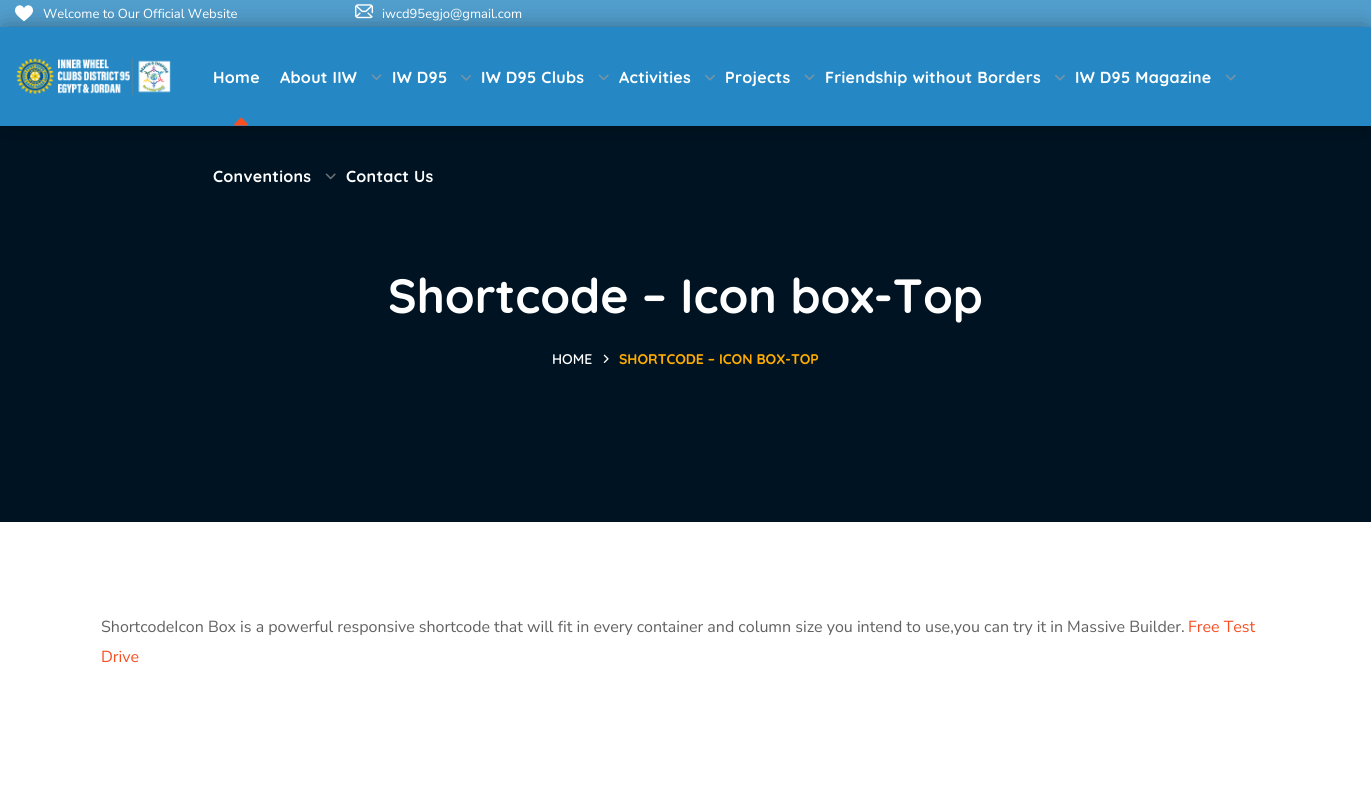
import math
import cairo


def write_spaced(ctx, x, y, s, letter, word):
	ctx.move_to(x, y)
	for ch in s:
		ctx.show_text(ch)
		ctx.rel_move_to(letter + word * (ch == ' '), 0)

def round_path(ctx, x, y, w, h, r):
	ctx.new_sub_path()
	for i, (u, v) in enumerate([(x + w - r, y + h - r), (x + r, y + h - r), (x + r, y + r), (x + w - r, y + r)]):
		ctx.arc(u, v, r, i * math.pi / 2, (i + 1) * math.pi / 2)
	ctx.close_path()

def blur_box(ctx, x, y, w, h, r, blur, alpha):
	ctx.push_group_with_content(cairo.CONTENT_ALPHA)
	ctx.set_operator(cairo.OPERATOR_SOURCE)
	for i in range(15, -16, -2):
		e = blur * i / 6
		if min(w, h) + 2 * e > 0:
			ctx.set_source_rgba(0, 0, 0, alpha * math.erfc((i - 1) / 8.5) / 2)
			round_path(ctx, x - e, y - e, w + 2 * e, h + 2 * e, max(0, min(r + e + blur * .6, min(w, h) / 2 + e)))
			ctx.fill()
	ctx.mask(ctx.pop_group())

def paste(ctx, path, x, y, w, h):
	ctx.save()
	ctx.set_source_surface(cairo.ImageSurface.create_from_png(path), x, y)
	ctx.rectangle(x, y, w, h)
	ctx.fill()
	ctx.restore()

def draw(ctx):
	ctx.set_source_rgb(1, 1, 1)
	ctx.paint()
	ctx.set_source_rgb(0.318, 0.62, 0.804)
	ctx.rectangle(0, 0, 1371, 27)
	ctx.fill()
	ctx.set_source_rgb(0, 0.075, 0.133)
	ctx.rectangle(0, 126, 1371, 396)
	ctx.fill()
	ctx.set_source_rgb(0, 0, 0)
	blur_box(ctx, 5, 32, 1361, 89, 0, 12.5, 0.5)
	paste(ctx, 'media/1.png', 15, 5, 18, 17)
	ctx.select_font_face('Nunito Sans')
	ctx.set_font_size(13)
	ctx.set_source_rgb(1, 1, 1)
	ctx.move_to(43, 18)
	ctx.show_text('Welcome to Our Official Website')
	paste(ctx, 'media/2.png', 355, 4, 19, 15)
	ctx.move_to(382, 18)
	ctx.show_text('iwcd95egjo@gmail.com')
	ctx.set_source_rgb(0.145, 0.533, 0.769)
	ctx.rectangle(0, 27, 1371, 99)
	ctx.fill()
	paste(ctx, 'media/3.png', 16, 58, 155, 37)
	ctx.select_font_face('Quicksand', cairo.FONT_SLANT_NORMAL, cairo.FONT_WEIGHT_BOLD)
	ctx.set_font_size(16)
	ctx.set_source_rgb(1, 1, 1)
	write_spaced(ctx, 213, 83, 'Home', 0.3, 0)
	write_spaced(ctx, 280, 83, 'About IIW', 0.3, 0)
	paste(ctx, 'media/4.png', 371, 74, 11, 7)
	write_spaced(ctx, 392, 83, 'IW D95', 0.3, 0)
	paste(ctx, 'media/5.png', 461, 75, 10, 6)
	write_spaced(ctx, 481, 83, 'IW D95 Clubs', 0.3, 0)
	paste(ctx, 'media/6.png', 598, 74, 11, 7)
	write_spaced(ctx, 619, 83, 'Activities', 0.3, 0)
	paste(ctx, 'media/7.png', 705, 74, 10, 7)
	write_spaced(ctx, 725, 83, 'Projects', 0.3, 0)
	paste(ctx, 'media/8.png', 804, 74, 11, 7)
	write_spaced(ctx, 825, 83, 'Friendship without Borders', 0.3, 0)
	paste(ctx, 'media/9.png', 1055, 74, 10, 7)
	write_spaced(ctx, 1075, 83, 'IW D95 Magazine', 0.3, 0)
	paste(ctx, 'media/10.png', 1225, 74, 11, 7)
	paste(ctx, 'media/11.png', 234, 117, 15, 9)
	write_spaced(ctx, 213, 182, 'Conventions', 0.3, 0)
	paste(ctx, 'media/12.png', 325, 173, 11, 7)
	write_spaced(ctx, 346, 182, 'Contact Us', 0.3, 0)
	ctx.set_font_size(48)
	ctx.move_to(388, 313)
	ctx.show_text('Shortcode – Icon box-Top')
	ctx.select_font_face('Quicksand SemiBold')
	ctx.set_font_size(14)
	ctx.move_to(552, 364)
	ctx.show_text('HOME')
	paste(ctx, 'media/13.png', 603, 354, 6, 9)
	ctx.select_font_face('Quicksand', cairo.FONT_SLANT_NORMAL, cairo.FONT_WEIGHT_BOLD)
	ctx.set_source_rgb(1, 0.675, 0)
	ctx.move_to(619, 364)
	ctx.show_text('SHORTCODE – ICON BOX-TOP')
	ctx.select_font_face('Nunito Sans')
	ctx.set_font_size(16)
	ctx.set_source_rgb(0.38, 0.38, 0.38)
	ctx.move_to(101, 632)
	ctx.show_text('ShortcodeIcon Box is a powerful responsive shortcode that will fit in every container and column size you intend to use,you can try it in Massive Builder.')
	ctx.set_source_rgb(0.969, 0.31, 0.133)
	ctx.move_to(1188, 632)
	ctx.show_text('Free Test')
	ctx.move_to(101, 662)
	ctx.show_text('Drive')


surface = cairo.ImageSurface(cairo.FORMAT_RGB24, 1371, 807)
ctx = cairo.Context(surface)
options = cairo.FontOptions()
options.set_hint_metrics(cairo.HINT_METRICS_OFF)
options.set_hint_style(cairo.HINT_STYLE_NONE)
ctx.set_font_options(options)
ctx.set_miter_limit(4)
draw(ctx)
surface.write_to_png('image.png')
